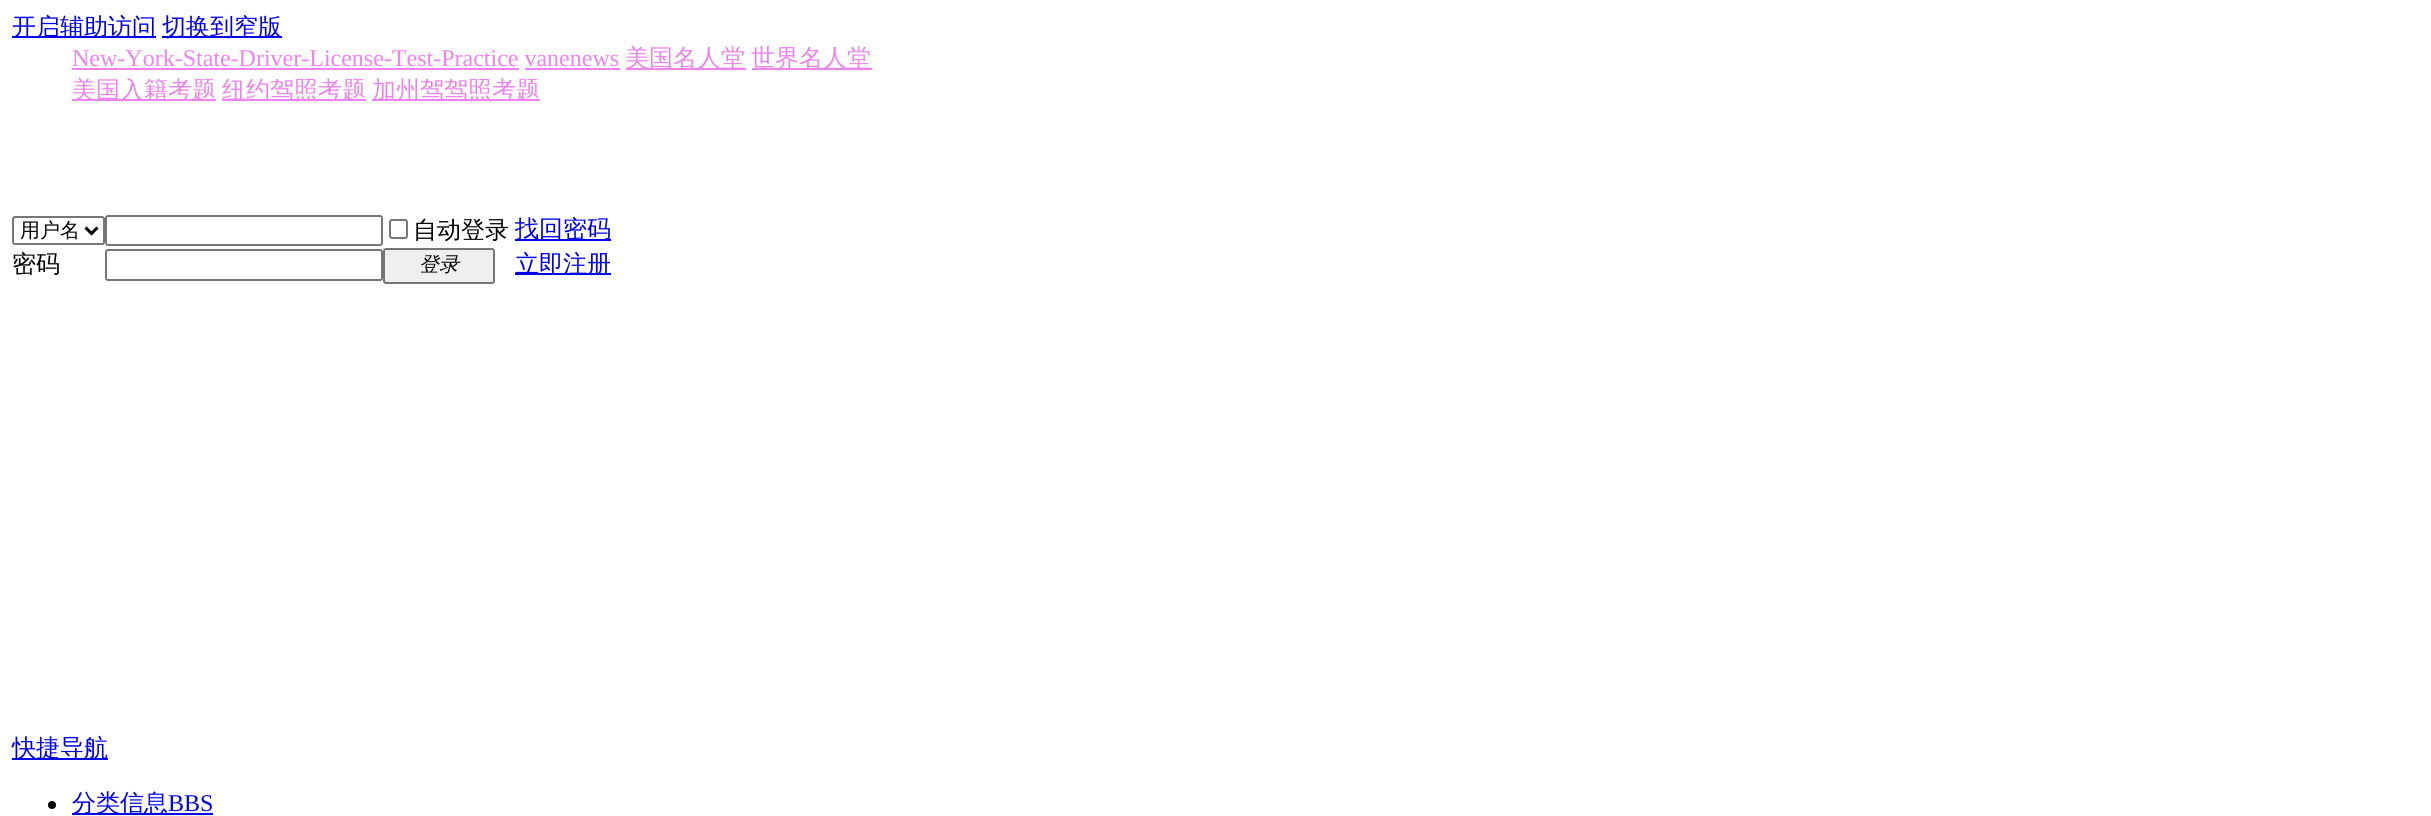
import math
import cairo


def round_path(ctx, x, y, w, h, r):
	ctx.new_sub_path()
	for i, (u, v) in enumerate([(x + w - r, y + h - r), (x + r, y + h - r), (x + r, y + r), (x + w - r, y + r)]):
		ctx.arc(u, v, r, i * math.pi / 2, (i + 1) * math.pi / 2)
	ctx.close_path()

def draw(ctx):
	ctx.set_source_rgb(1, 1, 1)
	ctx.paint()
	ctx.set_source_rgb(0, 0, 0.933)
	ctx.rectangle(12, 36, 144, 2)
	ctx.fill()
	ctx.select_font_face('WenQuanYi Zen Hei Medium')
	ctx.set_font_size(24)
	ctx.move_to(12, 35)
	ctx.show_text('开启辅助访问')
	ctx.rectangle(162, 36, 120, 2)
	ctx.fill()
	ctx.move_to(162, 35)
	ctx.show_text('切换到窄版')
	ctx.select_font_face('Liberation Serif')
	ctx.set_source_rgb(0.933, 0.51, 0.933)
	ctx.move_to(72, 66)
	ctx.show_text('New-York-State-Driver-License-Test-Practice vanenews')
	ctx.rectangle(72, 68, 447, 2)
	ctx.fill()
	ctx.rectangle(626, 68, 120, 2)
	ctx.fill()
	ctx.select_font_face('WenQuanYi Zen Hei Medium')
	ctx.move_to(625, 66)
	ctx.show_text('美国名人堂')
	ctx.rectangle(752, 68, 120, 2)
	ctx.fill()
	ctx.move_to(751, 66)
	ctx.show_text('世界名人堂')
	ctx.rectangle(525, 68, 95, 2)
	ctx.fill()
	ctx.rectangle(72, 99, 144, 2)
	ctx.fill()
	ctx.move_to(72, 98)
	ctx.show_text('美国入籍考题')
	ctx.rectangle(222, 99, 144, 2)
	ctx.fill()
	ctx.move_to(222, 98)
	ctx.show_text('纽约驾照考题')
	ctx.rectangle(372, 99, 168, 2)
	ctx.fill()
	ctx.move_to(372, 98)
	ctx.show_text('加州驾驾照考题')
	round_path(ctx, 13, 217, 91, 27, 2)
	ctx.set_source_rgb(0.463, 0.463, 0.463)
	ctx.stroke()
	ctx.new_path()
	ctx.move_to(85.5, 227.5)
	ctx.line_to(91.5, 233.5)
	ctx.line_to(97.5, 227.5)
	ctx.set_source_rgb(0, 0, 0)
	ctx.set_line_width(3)
	ctx.stroke()
	ctx.set_font_size(20)
	ctx.move_to(20, 237)
	ctx.show_text('用户名')
	round_path(ctx, 106, 216, 276, 29, 2)
	ctx.set_source_rgb(0.463, 0.463, 0.463)
	ctx.set_line_width(2)
	ctx.stroke()
	round_path(ctx, 390, 220, 17, 18, 2)
	ctx.stroke()
	ctx.set_font_size(24)
	ctx.set_source_rgb(0, 0, 0)
	ctx.move_to(413, 238)
	ctx.show_text('自动登录')
	ctx.set_source_rgb(0, 0, 0.933)
	ctx.rectangle(515, 239, 96, 2)
	ctx.fill()
	ctx.move_to(515, 237)
	ctx.show_text('找回密码')
	ctx.set_source_rgb(0, 0, 0)
	ctx.move_to(12, 272)
	ctx.show_text('密码')
	round_path(ctx, 106, 250, 276, 30, 2)
	ctx.set_source_rgb(0.463, 0.463, 0.463)
	ctx.stroke()
	ctx.set_source_rgb(0.937, 0.937, 0.937)
	round_path(ctx, 384, 249, 110, 34, 2)
	ctx.fill_preserve()
	ctx.set_source_rgb(0.463, 0.463, 0.463)
	ctx.stroke()
	ctx.select_font_face('WenQuanYi Zen Hei Medium', cairo.FONT_SLANT_ITALIC)
	ctx.set_font_size(20)
	ctx.set_source_rgb(0, 0, 0)
	ctx.move_to(419, 271)
	ctx.show_text('登录')
	ctx.set_source_rgb(0, 0, 0.933)
	ctx.rectangle(515, 273, 96, 2)
	ctx.fill()
	ctx.select_font_face('WenQuanYi Zen Hei Medium')
	ctx.set_font_size(24)
	ctx.move_to(515, 272)
	ctx.show_text('立即注册')
	ctx.rectangle(12, 758, 96, 2)
	ctx.fill()
	ctx.move_to(12, 756)
	ctx.show_text('快捷导航')
	ctx.set_source_rgb(0, 0, 0)
	ctx.new_path()
	ctx.arc(52, 805, 4, 0, 2 * math.pi)
	ctx.fill()
	ctx.set_source_rgb(0, 0, 0.933)
	ctx.rectangle(72, 813, 141, 2)
	ctx.fill()
	ctx.move_to(72, 811)
	ctx.show_text('分类信息')
	ctx.select_font_face('Liberation Serif')
	ctx.move_to(168, 811)
	ctx.show_text('BBS')


surface = cairo.ImageSurface(cairo.FORMAT_RGB24, 2431, 816)
ctx = cairo.Context(surface)
options = cairo.FontOptions()
options.set_hint_metrics(cairo.HINT_METRICS_OFF)
options.set_hint_style(cairo.HINT_STYLE_NONE)
ctx.set_font_options(options)
ctx.set_miter_limit(4)
draw(ctx)
surface.write_to_png('image.png')
